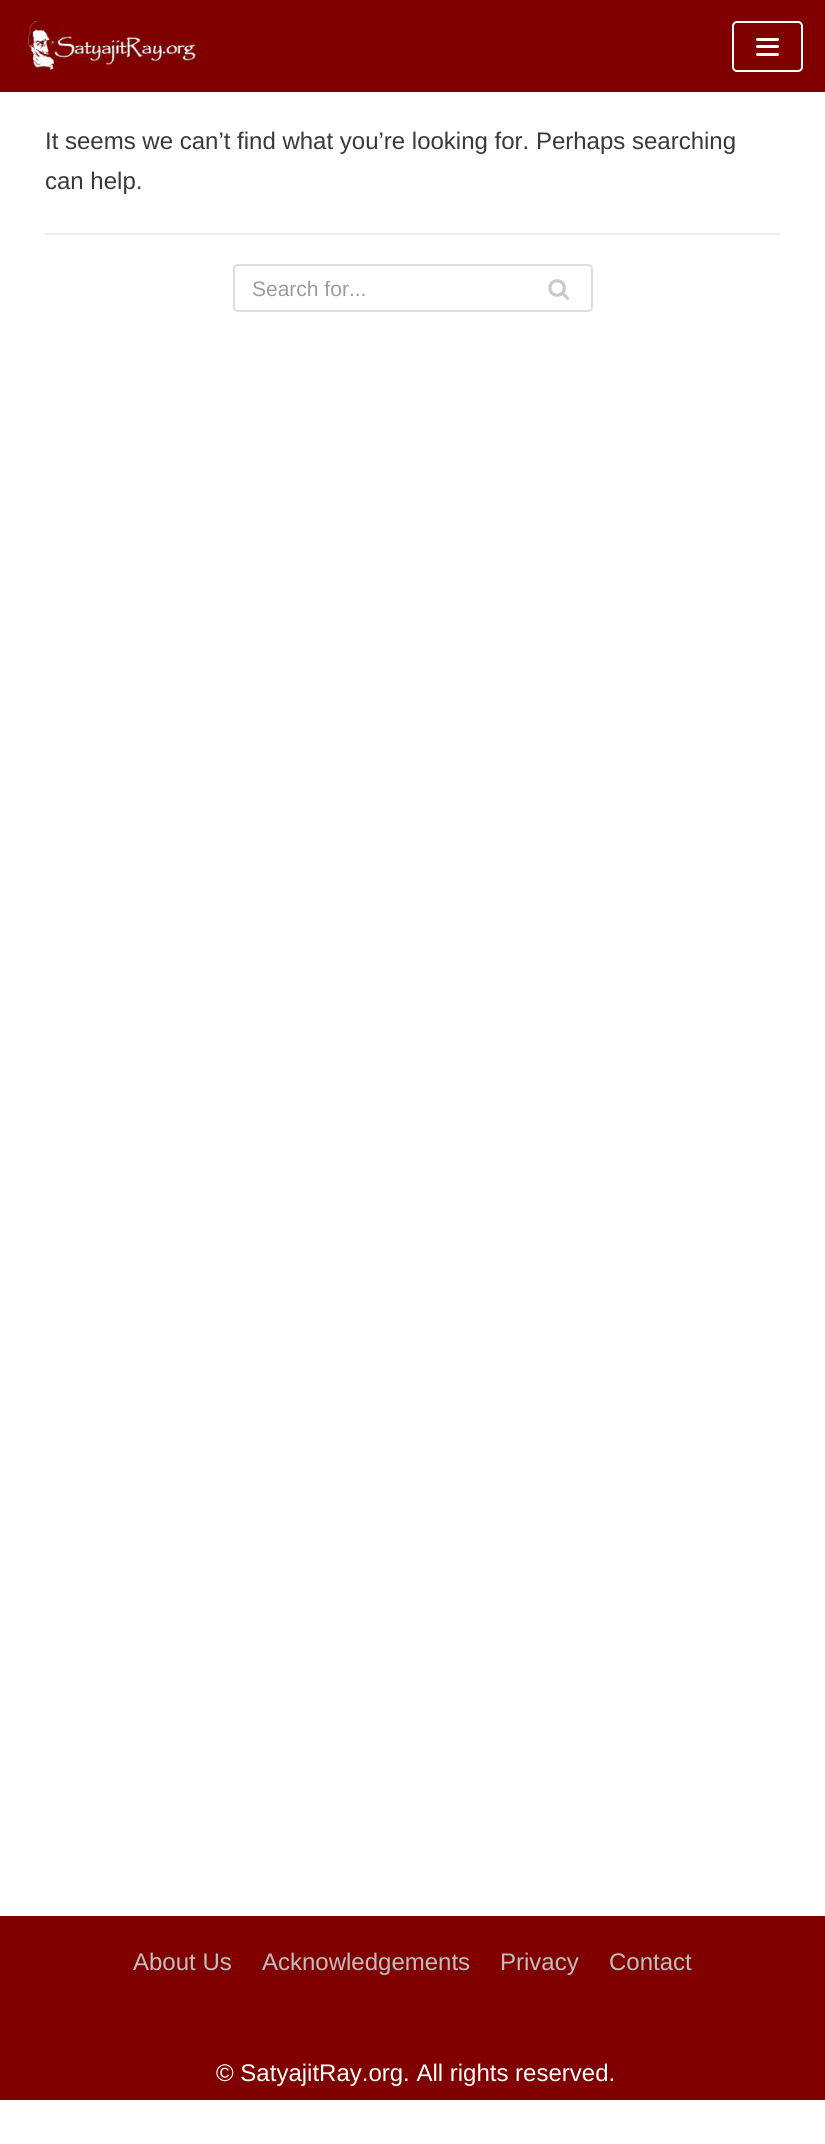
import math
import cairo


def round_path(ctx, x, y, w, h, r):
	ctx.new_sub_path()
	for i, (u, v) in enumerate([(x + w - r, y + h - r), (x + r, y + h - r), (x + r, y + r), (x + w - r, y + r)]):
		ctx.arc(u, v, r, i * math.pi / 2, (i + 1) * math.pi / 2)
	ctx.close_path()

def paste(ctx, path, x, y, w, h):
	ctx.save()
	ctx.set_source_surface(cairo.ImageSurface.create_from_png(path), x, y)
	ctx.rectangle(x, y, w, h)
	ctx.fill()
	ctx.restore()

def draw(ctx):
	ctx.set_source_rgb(1, 1, 1)
	ctx.paint()
	ctx.set_source_rgb(0.502, 0, 0)
	ctx.rectangle(0, 0, 825, 92)
	ctx.fill()
	paste(ctx, 'media/1.png', 27, 21, 169, 50)
	round_path(ctx, 733, 22, 69, 49, 4)
	ctx.set_source_rgb(1, 1, 1)
	ctx.stroke()
	round_path(ctx, 756, 38, 23, 3, 1.5)
	ctx.fill()
	round_path(ctx, 756, 45, 23, 3, 1.5)
	ctx.fill()
	round_path(ctx, 756, 53, 23, 3, 1.5)
	ctx.fill()
	ctx.select_font_face('Liberation Sans')
	ctx.set_font_size(24)
	ctx.set_source_rgb(0.224, 0.224, 0.224)
	ctx.move_to(45, 149)
	ctx.show_text('It seems we can’t find what you’re looking for. Perhaps searching')
	ctx.move_to(45, 189)
	ctx.show_text('can help.')
	ctx.set_source_rgb(0.929, 0.929, 0.929)
	ctx.rectangle(45, 233, 735, 2)
	ctx.fill()
	round_path(ctx, 234, 265, 358, 46, 4)
	ctx.set_source_rgb(0.867, 0.867, 0.867)
	ctx.stroke()
	ctx.set_font_size(21)
	ctx.set_source_rgb(0.612, 0.612, 0.612)
	ctx.move_to(252, 296)
	ctx.show_text('Search for...')
	paste(ctx, 'media/2.png', 548, 279, 22, 21)
	ctx.set_source_rgb(0.502, 0, 0)
	ctx.rectangle(0, 1916, 825, 184)
	ctx.fill()
	ctx.set_font_size(24)
	ctx.set_source_rgb(0.749, 0.749, 0.749)
	for x, y, s in [
		(133, 1970, 'About Us'),
		(262, 1970, 'Acknowledgements'),
		(500, 1970, 'Privacy'),
		(609, 1970, 'Contact'),
	]:
		ctx.move_to(x, y)
		ctx.show_text(s)
	ctx.set_source_rgb(1, 1, 1)
	ctx.move_to(216, 2081)
	ctx.show_text('© SatyajitRay.org. All rights reserved.')


surface = cairo.ImageSurface(cairo.FORMAT_RGB24, 825, 2144)
ctx = cairo.Context(surface)
options = cairo.FontOptions()
options.set_hint_metrics(cairo.HINT_METRICS_OFF)
options.set_hint_style(cairo.HINT_STYLE_NONE)
ctx.set_font_options(options)
ctx.set_miter_limit(4)
draw(ctx)
surface.write_to_png('image.png')
